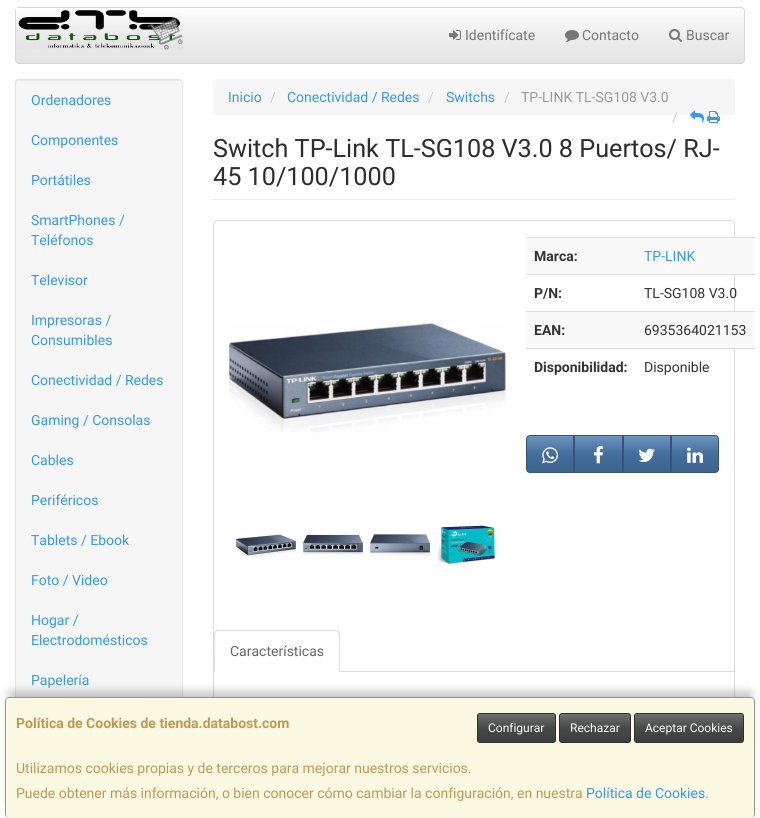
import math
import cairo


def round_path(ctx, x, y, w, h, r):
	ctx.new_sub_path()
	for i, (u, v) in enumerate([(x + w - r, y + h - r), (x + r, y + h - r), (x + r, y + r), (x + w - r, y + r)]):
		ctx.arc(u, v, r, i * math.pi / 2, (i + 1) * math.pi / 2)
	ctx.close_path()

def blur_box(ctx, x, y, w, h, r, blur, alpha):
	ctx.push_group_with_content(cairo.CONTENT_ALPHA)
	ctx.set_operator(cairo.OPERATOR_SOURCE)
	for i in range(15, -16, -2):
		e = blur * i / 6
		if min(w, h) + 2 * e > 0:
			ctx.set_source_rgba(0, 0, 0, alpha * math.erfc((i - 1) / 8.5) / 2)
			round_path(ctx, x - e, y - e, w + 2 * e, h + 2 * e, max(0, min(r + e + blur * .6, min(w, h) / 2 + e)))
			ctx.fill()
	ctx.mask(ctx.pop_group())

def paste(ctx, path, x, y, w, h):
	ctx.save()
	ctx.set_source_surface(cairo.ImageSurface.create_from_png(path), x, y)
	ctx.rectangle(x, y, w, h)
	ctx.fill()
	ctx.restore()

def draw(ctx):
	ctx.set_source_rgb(1, 1, 1)
	ctx.paint()
	ctx.save()
	round_path(ctx, 15, 7, 730, 57, 4)
	ctx.clip()
	gradient = cairo.LinearGradient(380, 8, 380, 63)
	gradient.add_color_stop_rgba(0, 1, 1, 1, 1)
	gradient.add_color_stop_rgba(0.5, 0.933, 0.933, 0.933, 1)
	gradient.add_color_stop_rgba(1, 0.894, 0.894, 0.894, 1)
	ctx.set_source(gradient)
	ctx.rectangle(16, 8, 728, 55)
	ctx.fill()
	ctx.restore()
	round_path(ctx, 15.5, 7.5, 729, 56, 3.5)
	ctx.set_source_rgb(0.835, 0.835, 0.835)
	ctx.set_line_width(1)
	ctx.stroke()
	paste(ctx, 'media/1.png', 16, 8, 167, 42)
	paste(ctx, 'media/2.png', 449, 30, 12, 10)
	ctx.select_font_face('Roboto')
	ctx.set_font_size(14)
	ctx.set_source_rgb(0.467, 0.467, 0.467)
	ctx.move_to(465, 40)
	ctx.show_text('Identifícate')
	paste(ctx, 'media/3.png', 565, 30, 14, 12)
	ctx.move_to(582, 40)
	ctx.show_text('Contacto')
	paste(ctx, 'media/4.png', 669, 29, 13, 13)
	ctx.move_to(686, 40)
	ctx.show_text('Buscar')
	ctx.set_source_rgb(0.961, 0.961, 0.961)
	round_path(ctx, 15, 79, 168, 702, 4)
	ctx.fill()
	ctx.set_source_rgb(0.914, 0.914, 0.914)
	ctx.new_path()
	ctx.move_to(19, 81)
	ctx.line_to(179, 81)
	ctx.curve_to(181, 81, 182, 82, 182, 84)
	ctx.line_to(182, 83)
	ctx.curve_to(182, 81, 181, 80, 179, 80)
	ctx.line_to(19, 80)
	ctx.curve_to(17, 80, 16, 81, 16, 83)
	ctx.line_to(16, 84)
	ctx.curve_to(16, 82, 17, 81, 19, 81)
	ctx.close_path()
	ctx.fill()
	round_path(ctx, 15.5, 79.5, 167, 701, 3.5)
	ctx.set_source_rgb(0.89, 0.89, 0.89)
	ctx.stroke()
	ctx.set_source_rgb(0.2, 0.6, 0.953)
	for x, y, s in [
		(31, 105, 'Ordenadores'),
		(31, 145, 'Componentes'),
		(31, 185, 'Portátiles'),
		(31, 225, 'SmartPhones /'),
		(31, 245, 'Teléfonos'),
		(31, 285, 'Televisor'),
		(31, 325, 'Impresoras /'),
		(31, 345, 'Consumibles'),
		(31, 385, 'Conectividad / Redes'),
		(31, 425, 'Gaming / Consolas'),
		(31, 465, 'Cables'),
		(31, 505, 'Periféricos'),
		(31, 545, 'Tablets / Ebook'),
		(31, 585, 'Foto / Video'),
		(31, 625, 'Hogar /'),
		(31, 645, 'Electrodomésticos'),
		(31, 685, 'Papelería'),
	]:
		ctx.move_to(x, y)
		ctx.show_text(s)
	ctx.set_source_rgb(0.961, 0.961, 0.961)
	round_path(ctx, 213, 79, 522, 36, 4)
	ctx.fill()
	ctx.set_source_rgb(0.2, 0.6, 0.953)
	ctx.move_to(228, 102)
	ctx.show_text('Inicio')
	ctx.set_source_rgb(0.8, 0.8, 0.8)
	ctx.move_to(270, 102)
	ctx.show_text('/')
	ctx.set_source_rgb(0.2, 0.6, 0.953)
	ctx.move_to(287, 102)
	ctx.show_text('Conectividad / Redes')
	ctx.set_source_rgb(0.8, 0.8, 0.8)
	ctx.move_to(428, 102)
	ctx.show_text('/')
	ctx.set_source_rgb(0.2, 0.6, 0.953)
	ctx.move_to(446, 102)
	ctx.show_text('Switchs')
	ctx.set_source_rgb(0.8, 0.8, 0.8)
	ctx.move_to(504, 102)
	ctx.show_text('/')
	ctx.set_source_rgb(0.6, 0.6, 0.6)
	ctx.move_to(521, 102)
	ctx.show_text('TP-LINK TL-SG108 V3.0')
	ctx.set_source_rgb(0.8, 0.8, 0.8)
	ctx.move_to(672, 122)
	ctx.show_text('/')
	paste(ctx, 'media/5.png', 690, 110, 14, 13)
	paste(ctx, 'media/6.png', 707, 111, 13, 12)
	ctx.set_source_rgb(0.933, 0.933, 0.933)
	ctx.rectangle(213, 199, 522, 1)
	ctx.fill()
	ctx.set_font_size(25.2)
	ctx.set_source_rgb(0.176, 0.176, 0.176)
	ctx.move_to(213, 157)
	ctx.show_text('Switch TP-Link TL-SG108 V3.0 8 Puertos/ RJ-')
	ctx.move_to(213, 185)
	ctx.show_text('45 10/100/1000')
	round_path(ctx, 213.5, 220.5, 521, 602, 3.5)
	ctx.set_source_rgb(0.867, 0.867, 0.867)
	ctx.stroke()
	paste(ctx, 'media/7.png', 229, 322, 277, 111)
	paste(ctx, 'media/8.png', 236, 534, 60, 24)
	paste(ctx, 'media/9.png', 303, 534, 60, 21)
	paste(ctx, 'media/10.png', 370, 534, 60, 22)
	paste(ctx, 'media/11.png', 438, 525, 57, 39)
	ctx.set_source_rgb(0.976, 0.976, 0.976)
	ctx.rectangle(526, 238, 228, 36)
	ctx.fill()
	ctx.select_font_face('Roboto', cairo.FONT_SLANT_NORMAL, cairo.FONT_WEIGHT_BOLD)
	ctx.set_font_size(14)
	ctx.set_source_rgb(0.2, 0.2, 0.2)
	ctx.move_to(534, 261)
	ctx.show_text('Marca:')
	ctx.set_source_rgb(0.867, 0.867, 0.867)
	ctx.rectangle(526, 237, 229, 1)
	ctx.fill()
	ctx.select_font_face('Roboto')
	ctx.set_source_rgb(0.2, 0.6, 0.953)
	ctx.move_to(644, 261)
	ctx.show_text('TP-LINK')
	ctx.select_font_face('Roboto', cairo.FONT_SLANT_NORMAL, cairo.FONT_WEIGHT_BOLD)
	ctx.set_source_rgb(0.2, 0.2, 0.2)
	ctx.move_to(534, 298)
	ctx.show_text('P/N:')
	ctx.set_source_rgb(0.867, 0.867, 0.867)
	ctx.rectangle(526, 274, 229, 1)
	ctx.fill()
	ctx.select_font_face('Roboto')
	ctx.set_source_rgb(0.2, 0.2, 0.2)
	ctx.move_to(644, 298)
	ctx.show_text('TL-SG108 V3.0')
	ctx.set_source_rgb(0.976, 0.976, 0.976)
	ctx.rectangle(526, 312, 228, 36)
	ctx.fill()
	ctx.select_font_face('Roboto', cairo.FONT_SLANT_NORMAL, cairo.FONT_WEIGHT_BOLD)
	ctx.set_source_rgb(0.2, 0.2, 0.2)
	ctx.move_to(534, 335)
	ctx.show_text('EAN:')
	ctx.set_source_rgb(0.867, 0.867, 0.867)
	ctx.rectangle(526, 311, 229, 1)
	ctx.fill()
	ctx.select_font_face('Roboto')
	ctx.set_source_rgb(0.2, 0.2, 0.2)
	ctx.move_to(644, 335)
	ctx.show_text('6935364021153')
	ctx.select_font_face('Roboto', cairo.FONT_SLANT_NORMAL, cairo.FONT_WEIGHT_BOLD)
	ctx.move_to(534, 372)
	ctx.show_text('Disponibilidad:')
	ctx.set_source_rgb(0.867, 0.867, 0.867)
	ctx.rectangle(526, 348, 229, 1)
	ctx.fill()
	ctx.select_font_face('Roboto')
	ctx.set_source_rgb(0.2, 0.2, 0.2)
	ctx.move_to(644, 372)
	ctx.show_text('Disponible')
	gradient = cairo.LinearGradient(550, 436, 550, 472)
	gradient.add_color_stop_rgba(0, 0.427, 0.58, 0.749, 1)
	gradient.add_color_stop_rgba(0.5, 0.267, 0.431, 0.608, 1)
	gradient.add_color_stop_rgba(1, 0.243, 0.392, 0.553, 1)
	ctx.set_source(gradient)
	ctx.rectangle(527, 436, 46, 36)
	ctx.fill()
	ctx.new_path()
	ctx.move_to(530, 435.5)
	ctx.line_to(573.5, 435.5)
	ctx.line_to(573.5, 472.5)
	ctx.line_to(530, 472.5)
	ctx.curve_to(528, 472.5, 526.5, 471, 526.5, 469)
	ctx.line_to(526.5, 439)
	ctx.curve_to(526.5, 437, 528, 435.5, 530, 435.5)
	ctx.close_path()
	ctx.set_source_rgb(0.204, 0.333, 0.471)
	ctx.stroke()
	paste(ctx, 'media/12.png', 542, 447, 16, 17)
	gradient = cairo.LinearGradient(599, 436, 599, 472)
	gradient.add_color_stop_rgba(0, 0.427, 0.58, 0.749, 1)
	gradient.add_color_stop_rgba(0.5, 0.267, 0.431, 0.608, 1)
	gradient.add_color_stop_rgba(1, 0.243, 0.392, 0.553, 1)
	ctx.set_source(gradient)
	ctx.rectangle(575, 436, 47, 36)
	ctx.fill()
	ctx.rectangle(574.5, 435.5, 48, 37)
	ctx.set_source_rgb(0.204, 0.333, 0.471)
	ctx.stroke()
	paste(ctx, 'media/13.png', 594, 446, 9, 18)
	gradient = cairo.LinearGradient(647, 436, 647, 472)
	gradient.add_color_stop_rgba(0, 0.427, 0.58, 0.749, 1)
	gradient.add_color_stop_rgba(0.5, 0.267, 0.431, 0.608, 1)
	gradient.add_color_stop_rgba(1, 0.243, 0.392, 0.553, 1)
	ctx.set_source(gradient)
	ctx.rectangle(624, 436, 46, 36)
	ctx.fill()
	ctx.rectangle(623.5, 435.5, 47, 37)
	ctx.set_source_rgb(0.204, 0.333, 0.471)
	ctx.stroke()
	paste(ctx, 'media/14.png', 638, 448, 17, 14)
	gradient = cairo.LinearGradient(695, 436, 695, 472)
	gradient.add_color_stop_rgba(0, 0.427, 0.58, 0.749, 1)
	gradient.add_color_stop_rgba(0.5, 0.267, 0.431, 0.608, 1)
	gradient.add_color_stop_rgba(1, 0.243, 0.392, 0.553, 1)
	ctx.set_source(gradient)
	ctx.rectangle(672, 436, 46, 36)
	ctx.fill()
	ctx.new_path()
	ctx.move_to(671.5, 435.5)
	ctx.line_to(715, 435.5)
	ctx.curve_to(717, 435.5, 718.5, 437, 718.5, 439)
	ctx.line_to(718.5, 469)
	ctx.curve_to(718.5, 471, 717, 472.5, 715, 472.5)
	ctx.line_to(671.5, 472.5)
	ctx.close_path()
	ctx.set_source_rgb(0.204, 0.333, 0.471)
	ctx.stroke()
	paste(ctx, 'media/15.png', 687, 447, 16, 16)
	ctx.set_source_rgb(0.867, 0.867, 0.867)
	ctx.rectangle(340, 671, 394, 1)
	ctx.fill()
	ctx.new_path()
	ctx.move_to(218, 630)
	ctx.line_to(215, 631)
	ctx.line_to(216, 632)
	ctx.line_to(218, 631)
	ctx.line_to(336, 631)
	ctx.line_to(338, 632)
	ctx.line_to(339, 631)
	ctx.line_to(336, 630)
	ctx.close_path()
	ctx.fill()
	ctx.new_path()
	ctx.move_to(340, 672)
	ctx.line_to(340, 634)
	ctx.curve_to(340, 633, 340, 632, 339, 631)
	ctx.line_to(338, 632)
	ctx.curve_to(340, 634, 339, 666, 339, 671)
	ctx.close_path()
	ctx.fill()
	ctx.new_path()
	ctx.move_to(214, 672)
	ctx.line_to(215, 671)
	ctx.curve_to(215, 666, 214, 634, 216, 632)
	ctx.line_to(215, 631)
	ctx.line_to(214, 634)
	ctx.close_path()
	ctx.fill()
	ctx.set_source_rgb(0.4, 0.4, 0.4)
	ctx.move_to(230, 656)
	ctx.show_text('Características')
	ctx.set_source_rgb(0, 0, 0)
	blur_box(ctx, 10, 692, 740, 111, 0, 5, 0.25)
	ctx.set_source_rgb(0.988, 0.973, 0.89)
	round_path(ctx, 5, 697, 750, 121, 4)
	ctx.fill()
	ctx.set_source_rgba(0, 0, 0, 0.4)
	ctx.set_fill_rule(cairo.FILL_RULE_EVEN_ODD)
	ctx.new_path()
	ctx.move_to(9, 697)
	ctx.line_to(751, 697)
	ctx.curve_to(753, 697, 755, 699, 755, 701)
	ctx.line_to(755, 814)
	ctx.curve_to(755, 816, 753, 818, 751, 818)
	ctx.line_to(9, 818)
	ctx.curve_to(7, 818, 5, 816, 5, 814)
	ctx.line_to(5, 701)
	ctx.curve_to(5, 699, 7, 697, 9, 697)
	ctx.close_path()
	ctx.move_to(9, 698)
	ctx.line_to(751, 698)
	ctx.curve_to(753, 698, 754, 699, 754, 701)
	ctx.line_to(754, 814)
	ctx.curve_to(754, 816, 753, 818, 751, 818)
	ctx.line_to(9, 818)
	ctx.curve_to(7, 818, 6, 816, 6, 814)
	ctx.line_to(6, 701)
	ctx.curve_to(6, 699, 7, 698, 9, 698)
	ctx.close_path()
	ctx.fill()
	ctx.select_font_face('Roboto', cairo.FONT_SLANT_NORMAL, cairo.FONT_WEIGHT_BOLD)
	ctx.set_source_rgb(0.753, 0.596, 0.325)
	ctx.move_to(16, 728)
	ctx.show_text('Política de Cookies de tienda.databost.com')
	gradient = cairo.LinearGradient(517, 714, 517, 742)
	gradient.add_color_stop_rgba(0, 0.427, 0.439, 0.439, 1)
	gradient.add_color_stop_rgba(0.5, 0.278, 0.286, 0.286, 1)
	gradient.add_color_stop_rgba(1, 0.239, 0.247, 0.247, 1)
	ctx.set_source(gradient)
	ctx.rectangle(478, 714, 77, 28)
	ctx.fill()
	round_path(ctx, 477.5, 713.5, 78, 29, 2.5)
	ctx.set_source_rgb(0.18, 0.184, 0.184)
	ctx.stroke()
	ctx.select_font_face('Roboto')
	ctx.set_font_size(12)
	ctx.set_source_rgb(1, 1, 1)
	ctx.move_to(488, 732)
	ctx.show_text('Configurar')
	gradient = cairo.LinearGradient(595, 714, 595, 742)
	gradient.add_color_stop_rgba(0, 0.427, 0.439, 0.439, 1)
	gradient.add_color_stop_rgba(0.5, 0.278, 0.286, 0.286, 1)
	gradient.add_color_stop_rgba(1, 0.239, 0.247, 0.247, 1)
	ctx.set_source(gradient)
	ctx.rectangle(560, 714, 70, 28)
	ctx.fill()
	round_path(ctx, 559.5, 713.5, 71, 29, 2.5)
	ctx.set_source_rgb(0.18, 0.184, 0.184)
	ctx.stroke()
	ctx.set_source_rgb(1, 1, 1)
	ctx.move_to(570, 732)
	ctx.show_text('Rechazar')
	gradient = cairo.LinearGradient(689, 714, 689, 742)
	gradient.add_color_stop_rgba(0, 0.427, 0.439, 0.439, 1)
	gradient.add_color_stop_rgba(0.5, 0.278, 0.286, 0.286, 1)
	gradient.add_color_stop_rgba(1, 0.239, 0.247, 0.247, 1)
	ctx.set_source(gradient)
	ctx.rectangle(635, 714, 108, 28)
	ctx.fill()
	round_path(ctx, 634.5, 713.5, 109, 29, 2.5)
	ctx.set_source_rgb(0.18, 0.184, 0.184)
	ctx.stroke()
	ctx.set_source_rgb(1, 1, 1)
	ctx.move_to(645, 732)
	ctx.show_text('Aceptar Cookies')
	ctx.set_font_size(14)
	ctx.set_source_rgb(0.753, 0.596, 0.325)
	ctx.move_to(16, 773)
	ctx.show_text('Utilizamos cookies propias y de terceros para mejorar nuestros servicios.')
	ctx.move_to(16, 798)
	ctx.show_text('Puede obtener más información, o bien conocer cómo cambiar la configuración, en nuestra')
	ctx.set_source_rgb(0.2, 0.6, 0.953)
	ctx.move_to(586, 798)
	ctx.show_text('Política de Cookies')
	ctx.set_source_rgb(0.753, 0.596, 0.325)
	ctx.move_to(705, 798)
	ctx.show_text('.')


surface = cairo.ImageSurface(cairo.FORMAT_RGB24, 760, 818)
ctx = cairo.Context(surface)
options = cairo.FontOptions()
options.set_hint_metrics(cairo.HINT_METRICS_OFF)
options.set_hint_style(cairo.HINT_STYLE_NONE)
ctx.set_font_options(options)
ctx.set_miter_limit(4)
draw(ctx)
surface.write_to_png('image.png')
